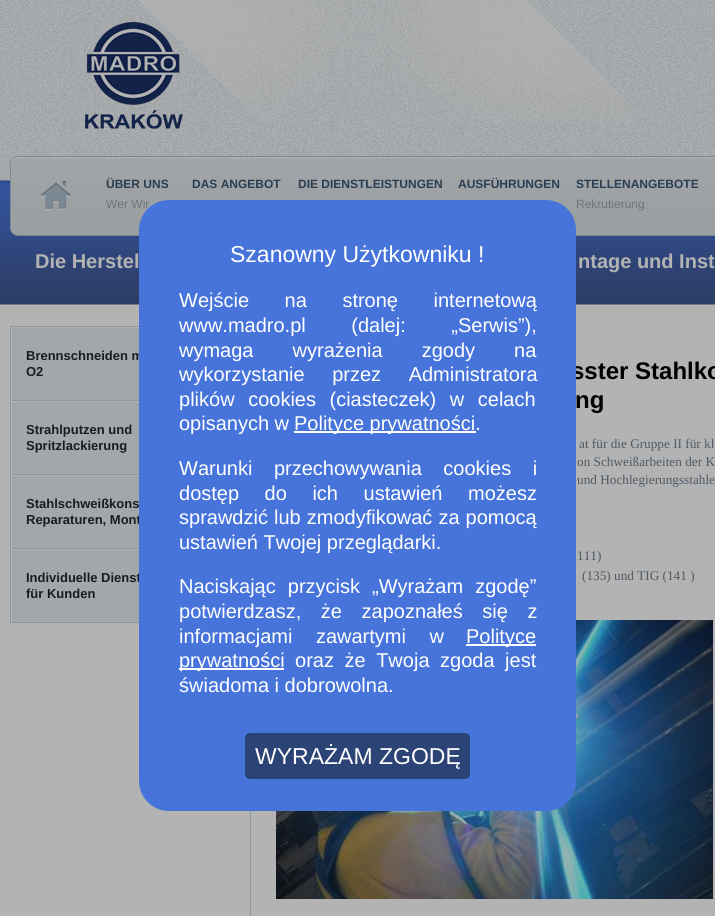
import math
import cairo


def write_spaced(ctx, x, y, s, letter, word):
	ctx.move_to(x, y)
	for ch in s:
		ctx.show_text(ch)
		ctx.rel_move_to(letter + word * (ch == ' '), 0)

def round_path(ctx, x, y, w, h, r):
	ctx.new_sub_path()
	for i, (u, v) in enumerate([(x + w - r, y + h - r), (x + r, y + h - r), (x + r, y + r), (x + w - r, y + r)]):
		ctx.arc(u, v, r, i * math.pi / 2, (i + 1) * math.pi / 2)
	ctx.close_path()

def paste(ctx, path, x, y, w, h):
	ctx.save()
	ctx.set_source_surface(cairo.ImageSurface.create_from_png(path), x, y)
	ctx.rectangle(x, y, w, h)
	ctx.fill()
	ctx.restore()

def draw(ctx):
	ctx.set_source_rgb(0.702, 0.702, 0.702)
	ctx.paint()
	paste(ctx, 'media/1.png', 0, 0, 715, 181)
	paste(ctx, 'media/2.png', 139, 0, 499, 125)
	paste(ctx, 'media/3.png', 85, 22, 98, 107)
	paste(ctx, 'media/7.png', 0, 180, 715, 125)
	paste(ctx, 'media/4.png', 10, 156, 705, 80)
	paste(ctx, 'media/5.png', 40, 181, 32, 29)
	ctx.select_font_face('Liberation Sans', cairo.FONT_SLANT_NORMAL, cairo.FONT_WEIGHT_BOLD)
	ctx.set_font_size(12)
	ctx.set_source_rgb(0.169, 0.243, 0.314)
	ctx.move_to(106, 188)
	ctx.show_text('ÜBER UNS')
	ctx.select_font_face('Liberation Sans')
	ctx.set_source_rgb(0.427, 0.455, 0.482)
	ctx.move_to(106, 208)
	ctx.show_text('Wer Wir')
	ctx.select_font_face('Liberation Sans', cairo.FONT_SLANT_NORMAL, cairo.FONT_WEIGHT_BOLD)
	ctx.set_source_rgb(0.169, 0.243, 0.314)
	for x, y, s in [
		(192, 188, 'DAS ANGEBOT'),
		(298, 188, 'DIE DIENSTLEISTUNGEN'),
		(458, 188, 'AUSFÜHRUNGEN'),
		(576, 188, 'STELLENANGEBOTE'),
	]:
		ctx.move_to(x, y)
		ctx.show_text(s)
	ctx.select_font_face('Liberation Sans')
	ctx.set_source_rgb(0.427, 0.455, 0.482)
	ctx.move_to(576, 208)
	ctx.show_text('Rekrutierung')
	ctx.select_font_face('Liberation Sans', cairo.FONT_SLANT_NORMAL, cairo.FONT_WEIGHT_BOLD)
	ctx.set_font_size(20)
	ctx.set_source_rgb(0.702, 0.702, 0.702)
	ctx.move_to(35, 268)
	ctx.show_text('Die Herstel')
	ctx.move_to(578, 268)
	ctx.show_text('ntage und Inst')
	ctx.set_source_rgb(0.639, 0.655, 0.663)
	ctx.rectangle(12, 328, 127, 294)
	ctx.fill()
	ctx.set_source_rgb(0.549, 0.584, 0.608)
	ctx.rectangle(10, 326, 129, 1)
	ctx.rectangle(10, 326, 1, 298)
	ctx.rectangle(11, 400, 128, 1)
	ctx.fill()
	ctx.set_source_rgb(0.702, 0.702, 0.702)
	ctx.rectangle(11, 400, 1, 1)
	ctx.fill()
	ctx.set_font_size(13)
	ctx.set_source_rgb(0.086, 0.11, 0.145)
	ctx.move_to(26, 360)
	ctx.show_text('Brennschneiden m')
	ctx.move_to(26, 376)
	ctx.show_text('O2')
	ctx.set_source_rgb(0.702, 0.702, 0.702)
	ctx.rectangle(11, 401, 128, 1)
	ctx.fill()
	ctx.set_source_rgb(0.549, 0.584, 0.608)
	ctx.rectangle(11, 474, 128, 1)
	ctx.fill()
	ctx.set_source_rgb(0.702, 0.702, 0.702)
	ctx.rectangle(11, 474, 1, 1)
	ctx.fill()
	ctx.set_source_rgb(0.086, 0.11, 0.145)
	ctx.move_to(26, 434)
	ctx.show_text('Strahlputzen und')
	ctx.move_to(26, 450)
	ctx.show_text('Spritzlackierung')
	ctx.set_source_rgb(0.702, 0.702, 0.702)
	ctx.rectangle(11, 475, 128, 1)
	ctx.fill()
	ctx.set_source_rgb(0.549, 0.584, 0.608)
	ctx.rectangle(11, 548, 128, 1)
	ctx.fill()
	ctx.set_source_rgb(0.702, 0.702, 0.702)
	ctx.rectangle(11, 548, 1, 1)
	ctx.fill()
	ctx.set_source_rgb(0.086, 0.11, 0.145)
	ctx.move_to(26, 508)
	ctx.show_text('Stahlschweißkons')
	ctx.move_to(26, 524)
	ctx.show_text('Reparaturen, Mont')
	ctx.set_source_rgb(0.702, 0.702, 0.702)
	ctx.rectangle(11, 549, 128, 1)
	ctx.fill()
	ctx.set_source_rgb(0.549, 0.584, 0.608)
	ctx.rectangle(11, 622, 128, 1)
	ctx.fill()
	ctx.set_source_rgb(0.702, 0.702, 0.702)
	ctx.rectangle(11, 622, 1, 1)
	ctx.fill()
	ctx.set_source_rgb(0.086, 0.11, 0.145)
	ctx.move_to(26, 582)
	ctx.show_text('Individuelle Dienst')
	ctx.move_to(26, 598)
	ctx.show_text('für Kunden')
	ctx.set_source_rgb(0.549, 0.584, 0.608)
	ctx.rectangle(250, 811, 1, 105)
	ctx.fill()
	ctx.set_font_size(24)
	ctx.set_source_rgb(0, 0, 0)
	ctx.move_to(571, 379)
	ctx.show_text('sster Stahlko')
	ctx.move_to(575, 408)
	ctx.show_text('ng')
	ctx.select_font_face('Liberation Serif')
	ctx.set_font_size(13.25)
	ctx.set_source_rgb(0.306, 0.353, 0.396)
	for x, y, s in [
		(579, 448, 'at für die Gruppe II für kl'),
		(577, 466, 'on Schweißarbeiten der K'),
		(577, 484, 'und Hochlegierungsstahle'),
		(577, 560, '111)'),
		(582, 580, '(135) und TIG (141 )'),
	]:
		ctx.move_to(x, y)
		ctx.show_text(s)
	paste(ctx, 'media/6.png', 276, 620, 437, 279)
	ctx.set_source_rgb(0.278, 0.455, 0.855)
	round_path(ctx, 139, 200, 437, 611, 30)
	ctx.fill()
	ctx.select_font_face('Liberation Sans')
	ctx.set_font_size(23)
	ctx.set_source_rgb(1, 1, 1)
	ctx.move_to(230, 262)
	ctx.show_text('Szanowny Użytkowniku !')
	ctx.set_font_size(20)
	write_spaced(ctx, 179, 307, 'Wejście na stronę internetową', 0, 30)
	write_spaced(ctx, 179, 332, 'www.madro.pl (dalej: „Serwis”),', 0, 40)
	write_spaced(ctx, 179, 357, 'wymaga wyrażenia zgody na', 0, 33.5)
	write_spaced(ctx, 179, 381, 'wykorzystanie przez Administratora', 0, 22)
	write_spaced(ctx, 179, 406, 'plików cookies (ciasteczek) w celach', 0, 8)
	ctx.move_to(179, 430)
	ctx.show_text('opisanych w')
	ctx.rectangle(294, 431, 182, 2)
	ctx.fill()
	ctx.move_to(294, 430)
	ctx.show_text('Polityce prywatności.')
	write_spaced(ctx, 179, 475, 'Warunki przechowywania cookies i', 0, 16)
	write_spaced(ctx, 179, 500, 'dostęp do ich ustawień możesz', 0, 20)
	write_spaced(ctx, 179, 524, 'sprawdzić lub zmodyfikować za pomocą', 0, 0.5)
	ctx.move_to(179, 549)
	ctx.show_text('ustawień Twojej przeglądarki.')
	write_spaced(ctx, 179, 593, 'Naciskając przycisk „Wyrażam zgodę”', 0, 6.5)
	write_spaced(ctx, 179, 618, 'potwierdzasz, że zapoznałeś się z', 0, 14)
	write_spaced(ctx, 179, 643, 'informacjami zawartymi w', 0, 18)
	ctx.rectangle(466, 644, 70, 2)
	ctx.fill()
	ctx.move_to(466, 643)
	ctx.show_text('Polityce')
	ctx.rectangle(179, 668, 105, 2)
	ctx.fill()
	ctx.move_to(179, 667)
	ctx.show_text('prywatności')
	write_spaced(ctx, 295, 667, 'oraz że Twoja zgoda jest', 0, 5)
	ctx.move_to(179, 692)
	ctx.show_text('świadoma i dobrowolna.')
	ctx.set_source_rgb(0.173, 0.263, 0.459)
	round_path(ctx, 245, 733, 225, 46, 5)
	ctx.fill()
	ctx.set_font_size(23)
	ctx.set_source_rgb(1, 1, 1)
	ctx.move_to(255, 764)
	ctx.show_text('WYRAŻAM ZGODĘ')


surface = cairo.ImageSurface(cairo.FORMAT_RGB24, 715, 916)
ctx = cairo.Context(surface)
options = cairo.FontOptions()
options.set_hint_metrics(cairo.HINT_METRICS_OFF)
options.set_hint_style(cairo.HINT_STYLE_NONE)
ctx.set_font_options(options)
ctx.set_miter_limit(4)
draw(ctx)
surface.write_to_png('image.png')
